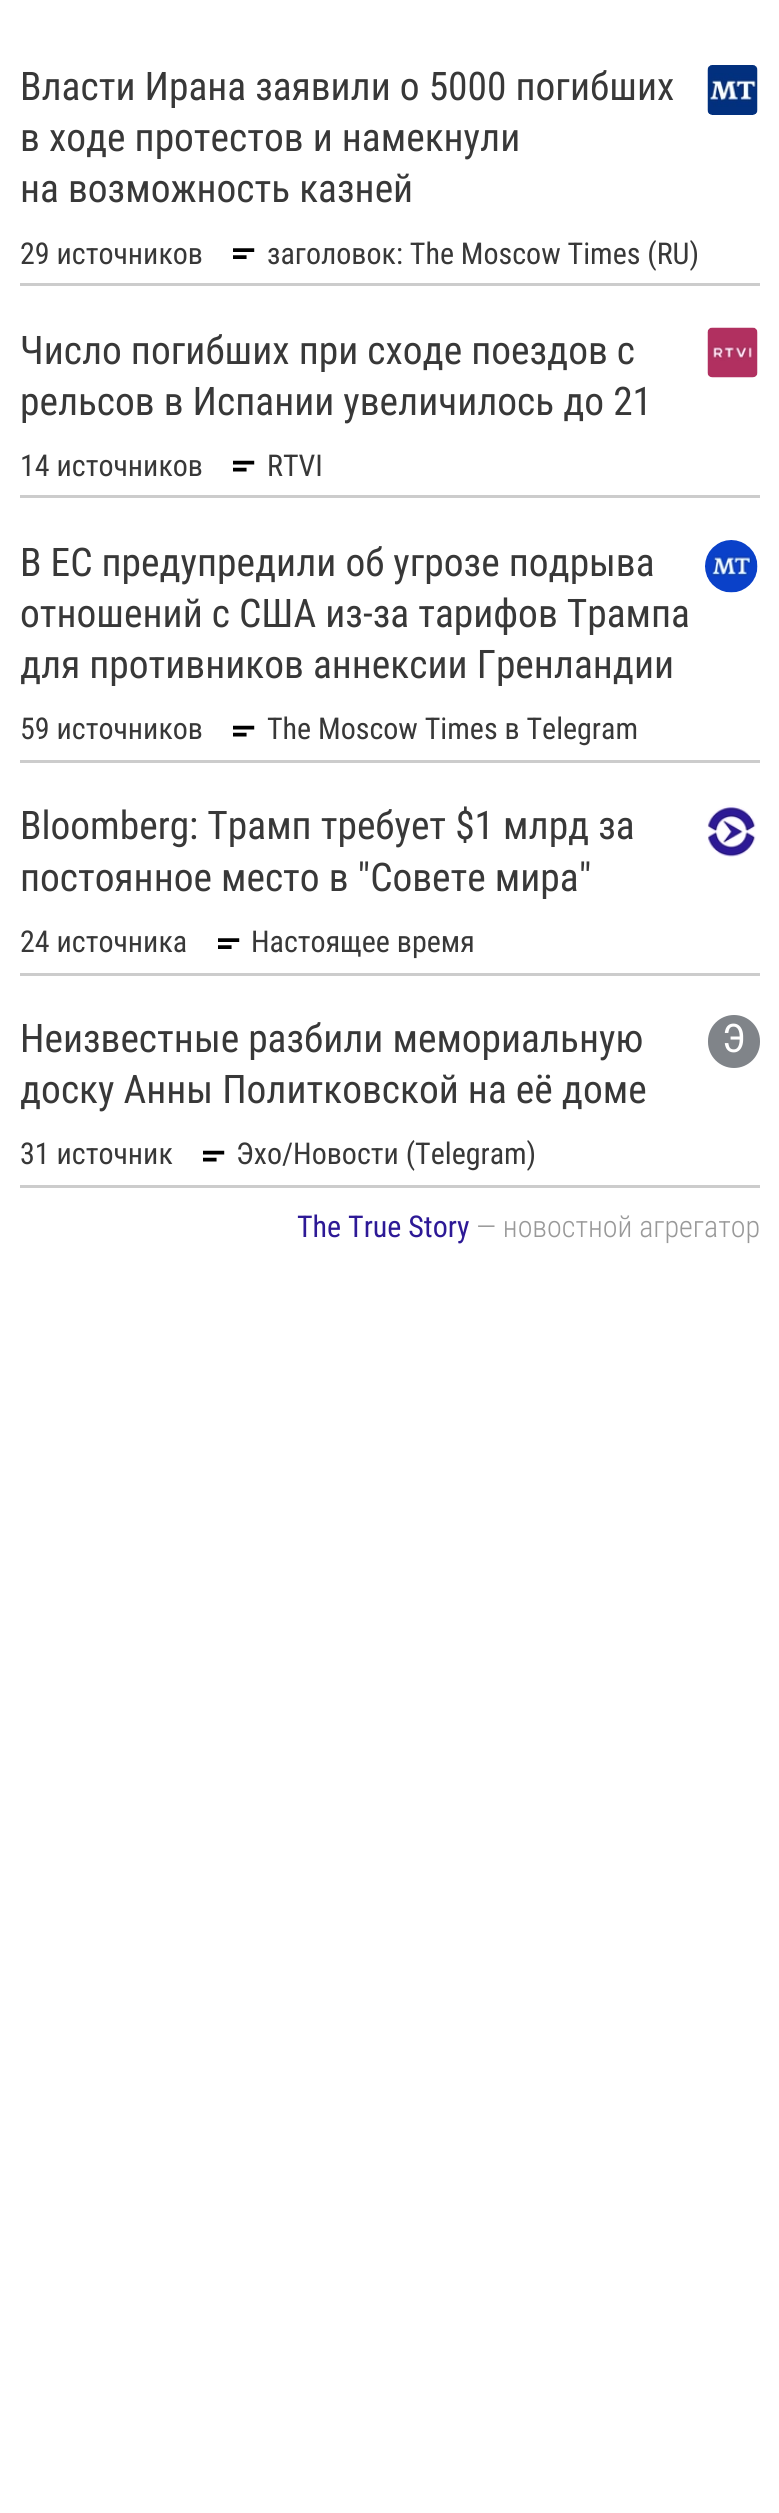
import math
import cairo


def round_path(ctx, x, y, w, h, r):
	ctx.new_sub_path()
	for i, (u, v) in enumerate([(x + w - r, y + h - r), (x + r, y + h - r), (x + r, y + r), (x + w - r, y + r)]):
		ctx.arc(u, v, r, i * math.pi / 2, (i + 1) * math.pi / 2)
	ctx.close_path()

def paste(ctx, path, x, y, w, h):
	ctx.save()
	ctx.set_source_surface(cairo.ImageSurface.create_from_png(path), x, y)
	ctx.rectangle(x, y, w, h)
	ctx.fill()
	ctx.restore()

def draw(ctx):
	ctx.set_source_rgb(1, 1, 1)
	ctx.paint()
	ctx.set_source_rgb(0.8, 0.8, 0.8)
	ctx.rectangle(20, 1185, 740, 3)
	ctx.fill()
	ctx.select_font_face('Roboto Condensed')
	ctx.set_font_size(39.4)
	ctx.set_source_rgb(0.22, 0.22, 0.22)
	for x, y, s in [
		(20, 100, 'Власти Ирана заявили о 5000 погибших'),
		(20, 151, 'в ходе протестов и намекнули'),
		(20, 202, 'на возможность казней'),
	]:
		ctx.move_to(x, y)
		ctx.show_text(s)
	paste(ctx, 'media/1.png', 707, 65, 51, 50)
	ctx.set_font_size(30)
	ctx.move_to(20, 264)
	ctx.show_text('29 источников')
	paste(ctx, 'media/2.png', 233, 248, 22, 11)
	ctx.move_to(267, 264)
	ctx.show_text('заголовок: The Moscow Times (RU)')
	ctx.set_source_rgb(0.8, 0.8, 0.8)
	ctx.rectangle(20, 283, 740, 3)
	ctx.fill()
	ctx.set_font_size(39.4)
	ctx.set_source_rgb(0.22, 0.22, 0.22)
	ctx.move_to(20, 364)
	ctx.show_text('Число погибших при сходе поездов с')
	ctx.move_to(20, 415)
	ctx.show_text('рельсов в Испании увеличилось до 21')
	paste(ctx, 'media/3.png', 707, 327, 51, 51)
	ctx.set_font_size(30)
	ctx.move_to(20, 476)
	ctx.show_text('14 источников')
	paste(ctx, 'media/4.png', 233, 460, 22, 12)
	ctx.move_to(267, 476)
	ctx.show_text('RTVI')
	ctx.set_source_rgb(0.8, 0.8, 0.8)
	ctx.rectangle(20, 495, 740, 3)
	ctx.fill()
	ctx.set_font_size(39.4)
	ctx.set_source_rgb(0.22, 0.22, 0.22)
	for x, y, s in [
		(20, 576, 'В ЕС предупредили об угрозе подрыва'),
		(20, 627, 'отношений с США из‑за тарифов Трампа'),
		(20, 678, 'для противников аннексии Гренландии'),
	]:
		ctx.move_to(x, y)
		ctx.show_text(s)
	paste(ctx, 'media/5.png', 705, 540, 53, 53)
	ctx.set_font_size(30)
	ctx.move_to(20, 739)
	ctx.show_text('59 источников')
	paste(ctx, 'media/4.png', 233, 725, 22, 12)
	ctx.move_to(267, 739)
	ctx.show_text('The Moscow Times в Telegram')
	ctx.set_source_rgb(0.8, 0.8, 0.8)
	ctx.rectangle(20, 760, 740, 3)
	ctx.fill()
	ctx.set_font_size(39.4)
	ctx.set_source_rgb(0.22, 0.22, 0.22)
	ctx.move_to(20, 839)
	ctx.show_text('Bloomberg: Трамп требует $1 млрд за')
	ctx.move_to(20, 891)
	ctx.show_text('постоянное место в "Совете мира"')
	paste(ctx, 'media/6.png', 707, 805, 49, 52)
	ctx.set_font_size(30)
	ctx.move_to(20, 952)
	ctx.show_text('24 источника')
	paste(ctx, 'media/2.png', 218, 938, 22, 11)
	ctx.move_to(251, 952)
	ctx.show_text('Настоящее время')
	ctx.set_source_rgb(0.8, 0.8, 0.8)
	ctx.rectangle(20, 973, 740, 3)
	ctx.fill()
	ctx.set_font_size(39.4)
	ctx.set_source_rgb(0.22, 0.22, 0.22)
	ctx.move_to(20, 1052)
	ctx.show_text('Неизвестные разбили мемориальную')
	ctx.move_to(20, 1103)
	ctx.show_text('доску Анны Политковской на её доме')
	ctx.set_source_rgb(0.502, 0.518, 0.537)
	round_path(ctx, 708, 1015, 52, 53, 26)
	ctx.fill()
	ctx.set_source_rgb(1, 1, 1)
	ctx.move_to(722, 1052)
	ctx.show_text('Э')
	ctx.set_font_size(30)
	ctx.set_source_rgb(0.22, 0.22, 0.22)
	ctx.move_to(20, 1164)
	ctx.show_text('31 источник')
	paste(ctx, 'media/4.png', 203, 1150, 22, 12)
	ctx.move_to(236, 1164)
	ctx.show_text('Эхо/Новости (Telegram)')
	ctx.set_source_rgb(0.176, 0.098, 0.588)
	ctx.move_to(297, 1237)
	ctx.show_text('The True Story')
	ctx.select_font_face('Roboto Condensed Light')
	ctx.set_source_rgb(0.6, 0.6, 0.6)
	ctx.move_to(476, 1237)
	ctx.show_text('— новостной агрегатор')


surface = cairo.ImageSurface(cairo.FORMAT_RGB24, 779, 2513)
ctx = cairo.Context(surface)
options = cairo.FontOptions()
options.set_hint_metrics(cairo.HINT_METRICS_OFF)
options.set_hint_style(cairo.HINT_STYLE_NONE)
ctx.set_font_options(options)
ctx.set_miter_limit(4)
draw(ctx)
surface.write_to_png('image.png')
